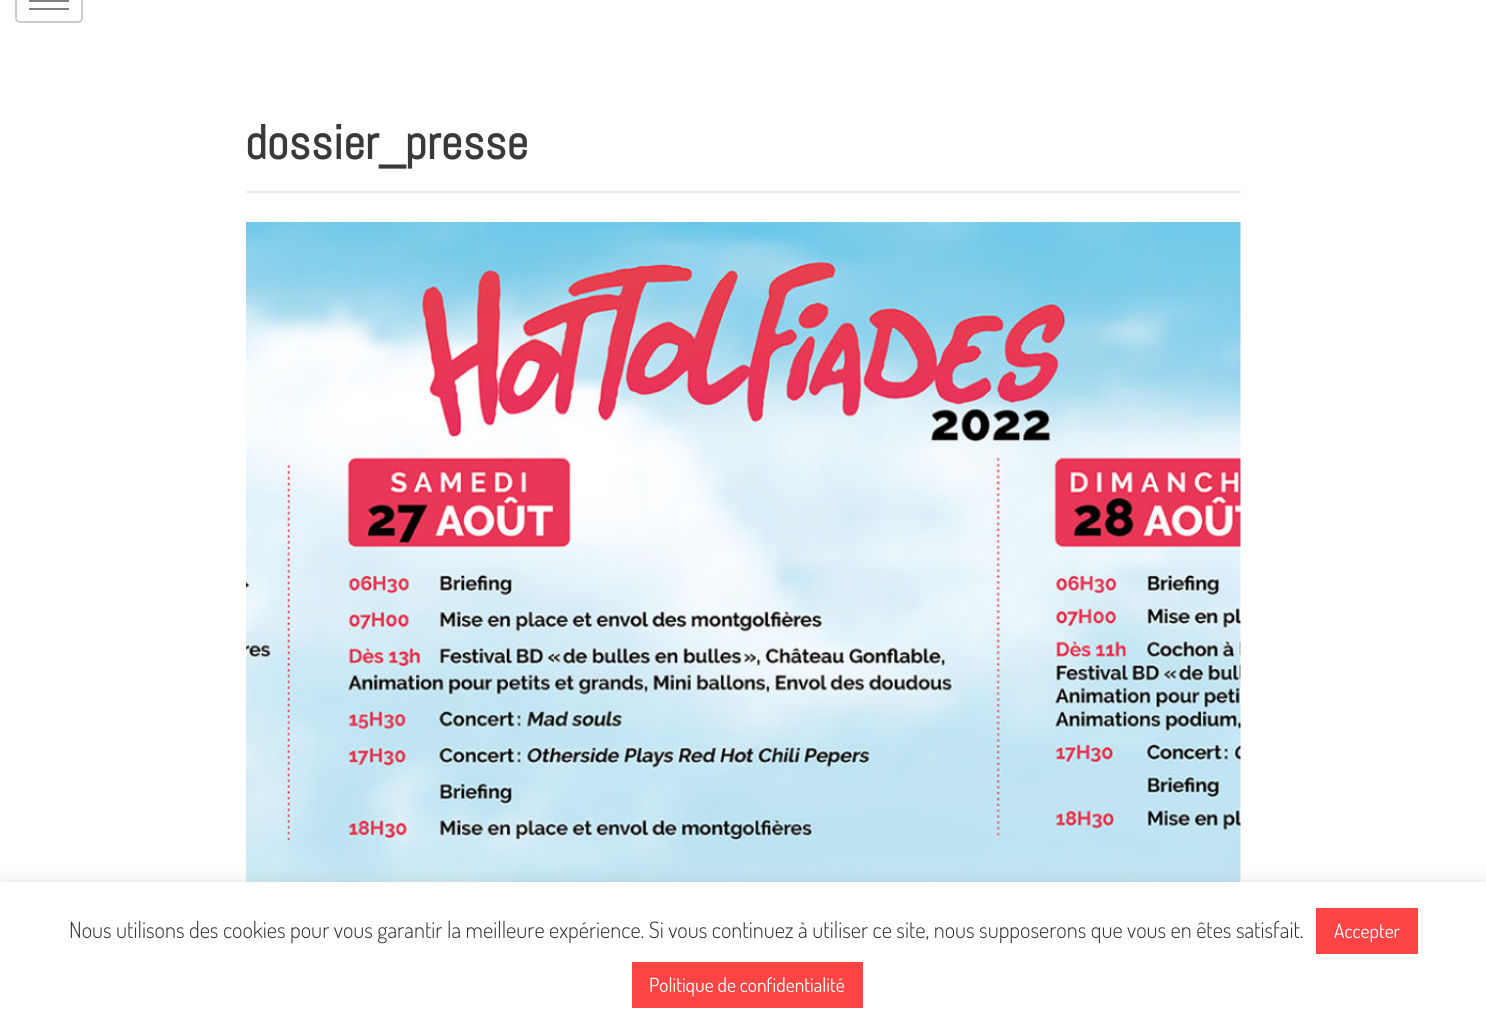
import math
import cairo


def round_path(ctx, x, y, w, h, r):
	ctx.new_sub_path()
	for i, (u, v) in enumerate([(x + w - r, y + h - r), (x + r, y + h - r), (x + r, y + r), (x + w - r, y + r)]):
		ctx.arc(u, v, r, i * math.pi / 2, (i + 1) * math.pi / 2)
	ctx.close_path()

def blur_box(ctx, x, y, w, h, r, blur, alpha):
	ctx.push_group_with_content(cairo.CONTENT_ALPHA)
	ctx.set_operator(cairo.OPERATOR_SOURCE)
	for i in range(15, -16, -2):
		e = blur * i / 6
		if min(w, h) + 2 * e > 0:
			ctx.set_source_rgba(0, 0, 0, alpha * math.erfc((i - 1) / 8.5) / 2)
			round_path(ctx, x - e, y - e, w + 2 * e, h + 2 * e, max(0, min(r + e + blur * .6, min(w, h) / 2 + e)))
			ctx.fill()
	ctx.mask(ctx.pop_group())

def paste(ctx, path, x, y, w, h):
	ctx.save()
	ctx.set_source_surface(cairo.ImageSurface.create_from_png(path), x, y)
	ctx.rectangle(x, y, w, h)
	ctx.fill()
	ctx.restore()

def draw(ctx):
	ctx.set_source_rgb(1, 1, 1)
	ctx.paint()
	round_path(ctx, 16, -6, 66, 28, 4)
	ctx.set_source_rgb(0.8, 0.8, 0.8)
	ctx.stroke()
	ctx.set_source_rgb(0.502, 0.502, 0.502)
	ctx.rectangle(29, 0, 40, 2)
	ctx.rectangle(29, 8, 40, 2)
	ctx.fill()
	ctx.set_source_rgb(0.929, 0.929, 0.929)
	ctx.rectangle(246, 191, 995, 2)
	ctx.fill()
	ctx.select_font_face('Abel', cairo.FONT_SLANT_NORMAL, cairo.FONT_WEIGHT_BOLD)
	ctx.set_font_size(48)
	ctx.set_source_rgb(0.224, 0.224, 0.224)
	ctx.move_to(245, 159)
	ctx.show_text('dossier_presse')
	paste(ctx, 'media/1.png', 246, 222, 995, 660)
	ctx.set_source_rgb(0.675, 0.671, 0.671)
	blur_box(ctx, 0, 881, 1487, 144, 0, 7.5, 0.3)
	ctx.set_source_rgb(1, 1, 1)
	ctx.rectangle(0, 882, 1486, 143)
	ctx.fill()
	ctx.select_font_face('Dosis Light')
	ctx.set_font_size(22.5)
	ctx.set_source_rgb(0.2, 0.2, 0.2)
	ctx.move_to(69, 938)
	ctx.show_text('Nous utilisons des cookies pour vous garantir la meilleure expérience. Si vous continuez à utiliser ce site, nous supposerons que vous en êtes satisfait.')
	ctx.set_source_rgb(1, 0.267, 0.267)
	ctx.rectangle(1316, 908, 102, 46)
	ctx.fill()
	ctx.select_font_face('Dosis')
	ctx.set_font_size(19.5)
	ctx.set_source_rgb(1, 1, 1)
	ctx.move_to(1334, 938)
	ctx.show_text('Accepter')
	ctx.set_source_rgb(1, 0.267, 0.267)
	ctx.rectangle(632, 962, 231, 46)
	ctx.fill()
	ctx.set_source_rgb(1, 1, 1)
	ctx.move_to(649, 992)
	ctx.show_text('Politique de confidentialité')


surface = cairo.ImageSurface(cairo.FORMAT_RGB24, 1486, 1025)
ctx = cairo.Context(surface)
options = cairo.FontOptions()
options.set_hint_metrics(cairo.HINT_METRICS_OFF)
options.set_hint_style(cairo.HINT_STYLE_NONE)
ctx.set_font_options(options)
ctx.set_miter_limit(4)
draw(ctx)
surface.write_to_png('image.png')
